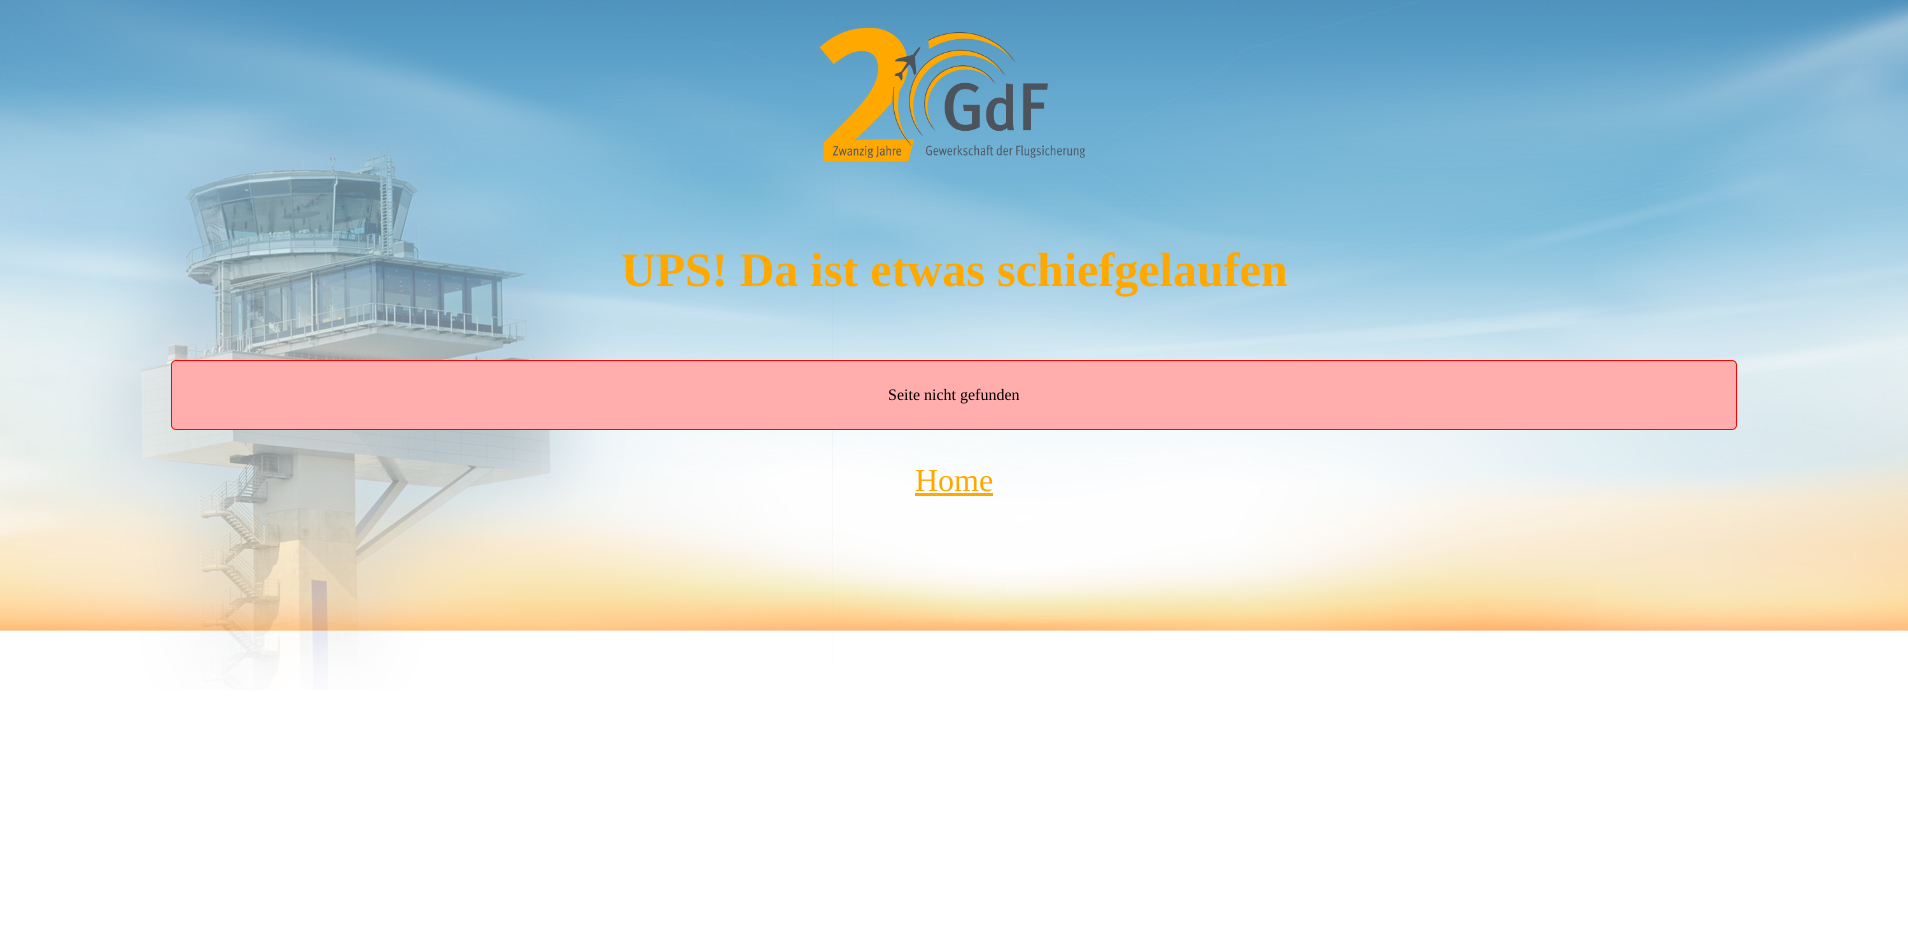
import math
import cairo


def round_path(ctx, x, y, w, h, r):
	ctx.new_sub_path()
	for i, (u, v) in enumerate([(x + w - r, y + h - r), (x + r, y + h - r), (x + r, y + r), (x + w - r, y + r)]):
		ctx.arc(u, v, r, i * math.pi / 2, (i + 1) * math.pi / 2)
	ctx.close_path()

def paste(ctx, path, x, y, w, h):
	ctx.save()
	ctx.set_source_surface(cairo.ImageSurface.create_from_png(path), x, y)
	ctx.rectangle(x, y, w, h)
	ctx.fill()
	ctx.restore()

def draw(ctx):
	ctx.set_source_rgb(1, 1, 1)
	ctx.paint()
	paste(ctx, 'media/1.png', 0, 0, 1908, 690)
	paste(ctx, 'media/2.png', 819, 27, 267, 135)
	ctx.select_font_face('Liberation Serif', cairo.FONT_SLANT_NORMAL, cairo.FONT_WEIGHT_BOLD)
	ctx.set_font_size(48)
	ctx.set_source_rgb(1, 0.659, 0)
	ctx.move_to(621, 286)
	ctx.show_text('UPS! Da ist etwas schiefgelaufen')
	ctx.set_source_rgb(1, 0.678, 0.678)
	round_path(ctx, 171.5, 360.5, 1565, 69, 4.5)
	ctx.fill_preserve()
	ctx.set_source_rgb(1, 0, 0)
	ctx.set_line_width(1)
	ctx.stroke()
	ctx.select_font_face('Liberation Serif')
	ctx.set_font_size(16)
	ctx.set_source_rgb(0, 0, 0)
	ctx.move_to(888, 400)
	ctx.show_text('Seite nicht gefunden')
	ctx.set_font_size(32)
	ctx.set_source_rgb(1, 0.659, 0)
	ctx.move_to(915, 491)
	ctx.show_text('Home')
	ctx.rectangle(915, 493, 78, 3)
	ctx.fill()


surface = cairo.ImageSurface(cairo.FORMAT_RGB24, 1908, 948)
ctx = cairo.Context(surface)
options = cairo.FontOptions()
options.set_hint_metrics(cairo.HINT_METRICS_OFF)
options.set_hint_style(cairo.HINT_STYLE_NONE)
ctx.set_font_options(options)
ctx.set_miter_limit(4)
draw(ctx)
surface.write_to_png('image.png')
